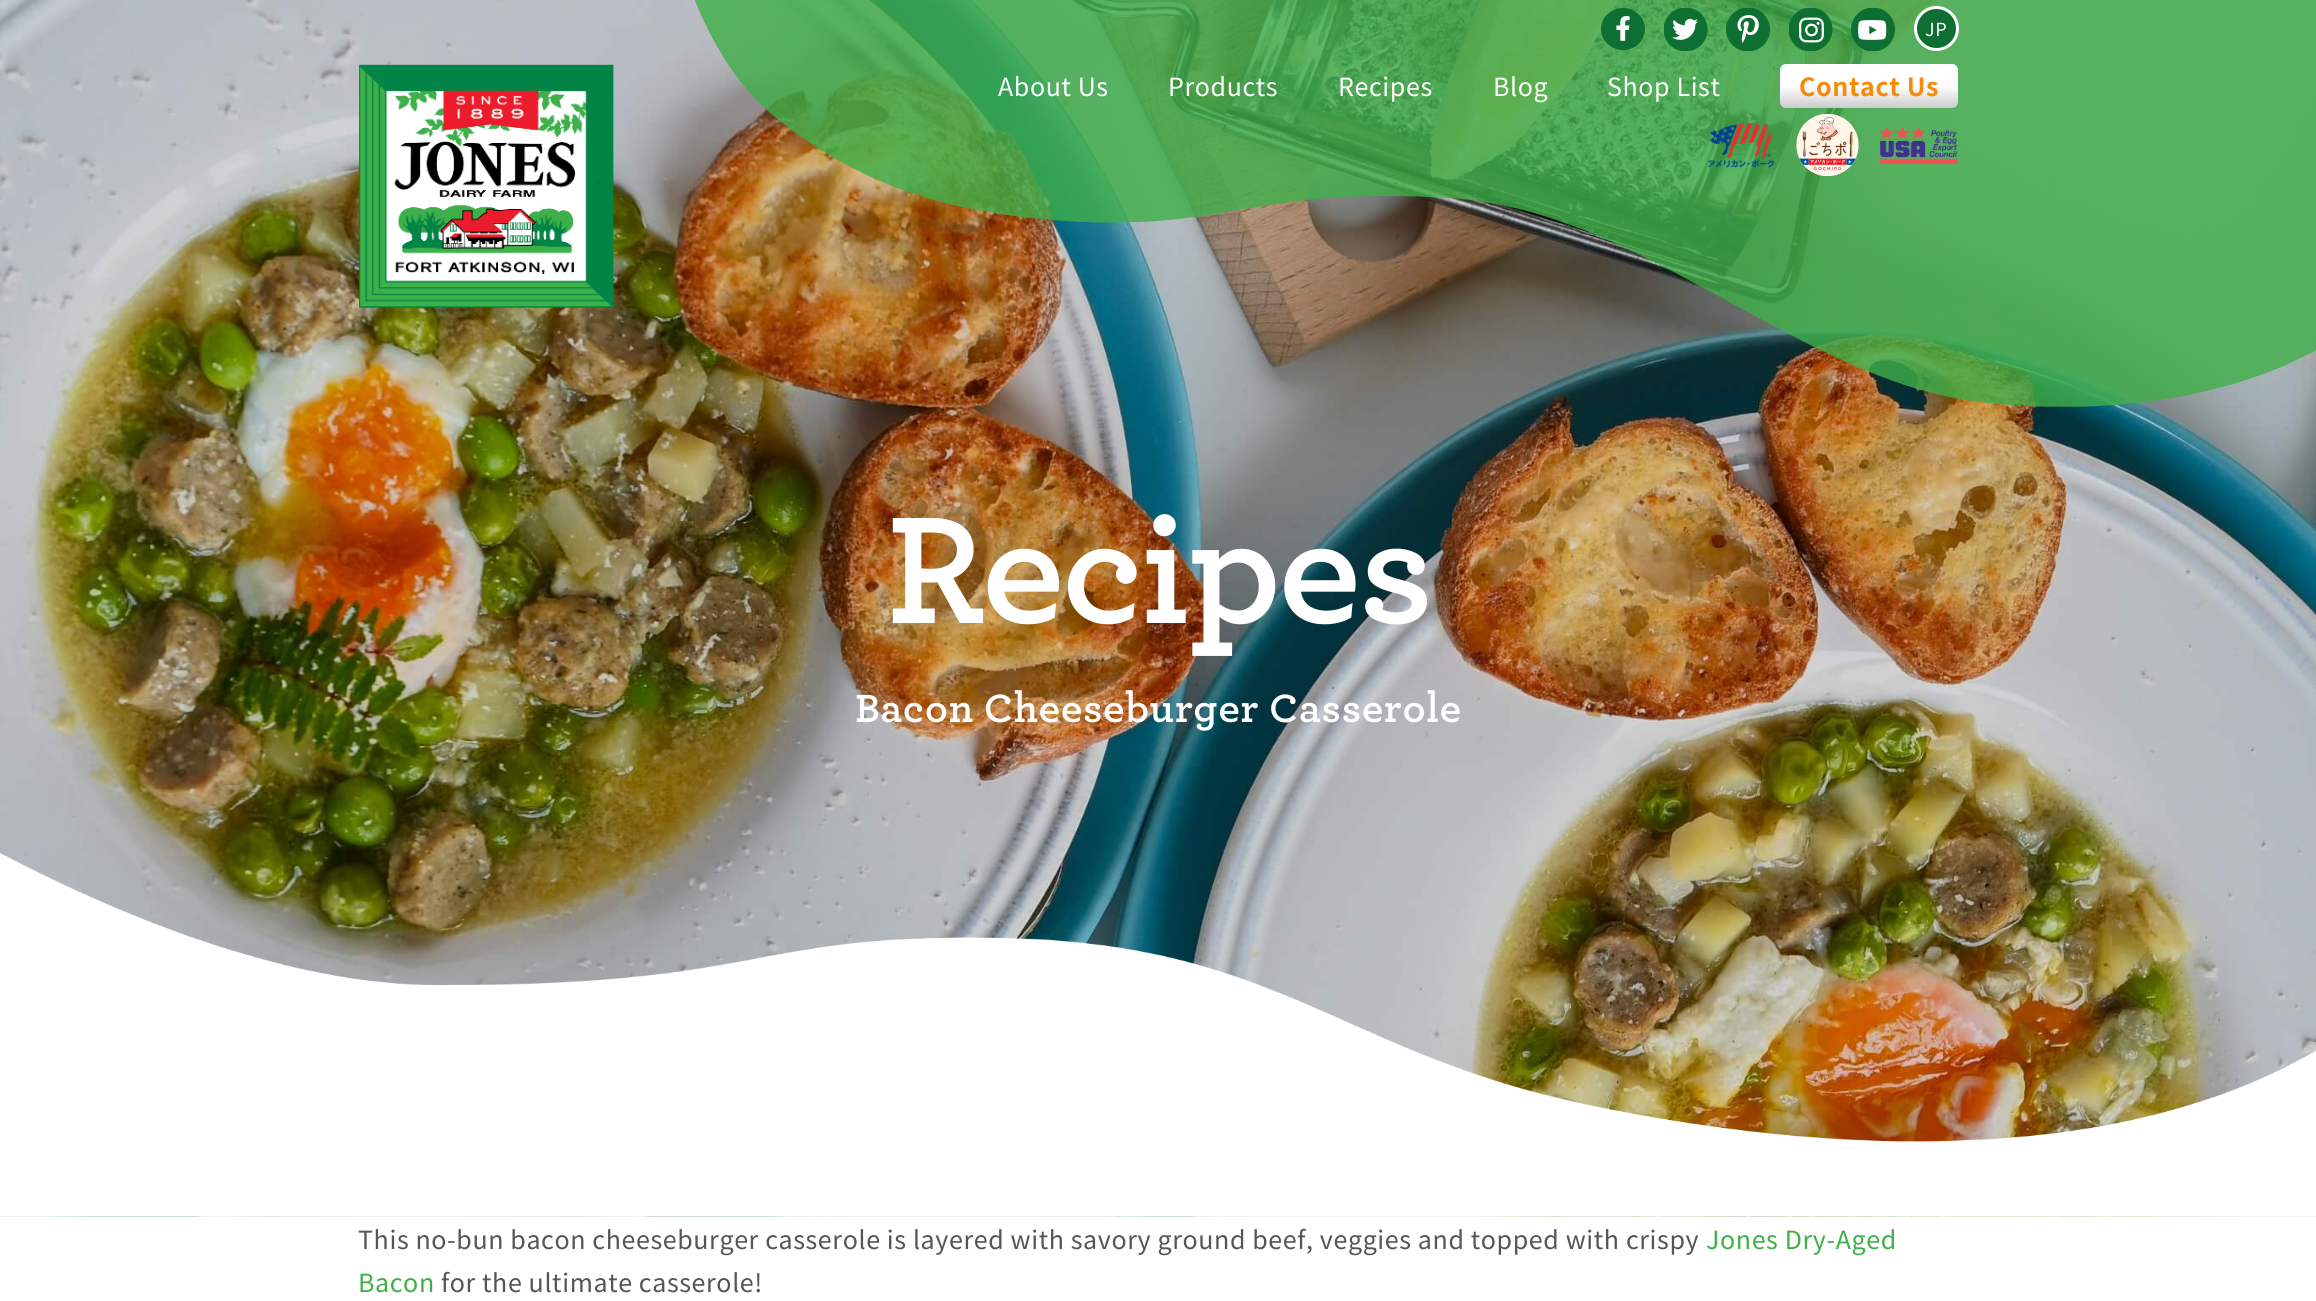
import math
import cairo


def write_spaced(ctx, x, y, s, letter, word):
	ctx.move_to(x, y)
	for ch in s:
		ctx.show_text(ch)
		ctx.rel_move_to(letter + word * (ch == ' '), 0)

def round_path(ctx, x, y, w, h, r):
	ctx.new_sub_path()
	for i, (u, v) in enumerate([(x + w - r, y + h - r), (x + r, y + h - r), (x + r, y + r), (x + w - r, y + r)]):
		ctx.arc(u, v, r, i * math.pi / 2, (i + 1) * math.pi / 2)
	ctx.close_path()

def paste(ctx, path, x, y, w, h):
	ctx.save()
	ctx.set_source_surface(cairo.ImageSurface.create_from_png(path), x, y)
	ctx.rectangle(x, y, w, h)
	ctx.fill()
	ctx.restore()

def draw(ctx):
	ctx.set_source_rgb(1, 1, 1)
	ctx.paint()
	paste(ctx, 'media/11.png', 0, 0, 2316, 1217)
	paste(ctx, 'media/1.png', 695, 0, 1621, 407)
	paste(ctx, 'media/2.png', 1601, 8, 44, 42)
	paste(ctx, 'media/3.png', 1664, 8, 44, 43)
	paste(ctx, 'media/4.png', 1726, 8, 44, 43)
	paste(ctx, 'media/5.png', 1789, 8, 44, 43)
	paste(ctx, 'media/6.png', 1851, 8, 44, 43)
	ctx.set_source_rgb(0.051, 0.435, 0.192)
	ctx.arc(1936.5, 28.5, 21, 0, 2 * math.pi)
	ctx.fill_preserve()
	ctx.set_source_rgb(1, 1, 1)
	ctx.set_line_width(3)
	ctx.stroke()
	ctx.select_font_face('Noto Sans JP')
	ctx.set_font_size(18)
	write_spaced(ctx, 1925, 36, 'JP', 0.62, 0)
	paste(ctx, 'media/7.png', 359, 64, 255, 244)
	ctx.set_font_size(25)
	for x, y, s in [
		(998, 96, 'About Us'),
		(1168, 96, 'Products'),
		(1338, 96, 'Recipes'),
		(1493, 96, 'Blog'),
		(1607, 96, 'Shop List'),
	]:
		write_spaced(ctx, x, y, s, 0.62, 0)
	gradient = cairo.LinearGradient(1869, 64, 1869, 108)
	gradient.add_color_stop_rgba(0, 1, 1, 1, 1)
	gradient.add_color_stop_rgba(0.5, 1, 1, 1, 1)
	gradient.add_color_stop_rgba(1, 0.8, 0.8, 0.8, 1)
	ctx.set_source(gradient)
	round_path(ctx, 1780, 64, 178, 44, 6)
	ctx.fill()
	ctx.select_font_face('Noto Sans JP', cairo.FONT_SLANT_NORMAL, cairo.FONT_WEIGHT_BOLD)
	ctx.set_source_rgb(0.973, 0.537, 0.024)
	write_spaced(ctx, 1799, 96, 'Contact Us', 0.62, 0)
	paste(ctx, 'media/8.png', 1707, 123, 67, 45)
	paste(ctx, 'media/9.png', 1796, 114, 63, 62)
	paste(ctx, 'media/10.png', 1879, 126, 79, 39)
	ctx.select_font_face('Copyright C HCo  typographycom', cairo.FONT_SLANT_NORMAL, cairo.FONT_WEIGHT_BOLD)
	ctx.set_font_size(145)
	ctx.set_source_rgb(1, 1, 1)
	write_spaced(ctx, 886, 623, 'Recipes', -4.25, 0)
	ctx.set_font_size(37.5)
	write_spaced(ctx, 855, 722, 'Bacon Cheeseburger Casserole', 0.4, 0)
	paste(ctx, 'media/12.png', 0, 853, 2316, 364)
	ctx.select_font_face('Noto Sans JP')
	ctx.set_font_size(25)
	ctx.set_source_rgb(0.333, 0.333, 0.333)
	write_spaced(ctx, 358, 1249, 'This no-bun bacon cheeseburger casserole is layered with savory ground beef, veggies and topped with crispy', 0.62, 0)
	ctx.set_source_rgb(0.247, 0.686, 0.286)
	write_spaced(ctx, 1706, 1249, 'Jones Dry-Aged', 0.62, 0)
	write_spaced(ctx, 358, 1292, 'Bacon', 0.62, 0)
	ctx.set_source_rgb(0.333, 0.333, 0.333)
	write_spaced(ctx, 441, 1292, 'for the ultimate casserole!', 0.62, 0)


surface = cairo.ImageSurface(cairo.FORMAT_RGB24, 2316, 1301)
ctx = cairo.Context(surface)
options = cairo.FontOptions()
options.set_hint_metrics(cairo.HINT_METRICS_OFF)
options.set_hint_style(cairo.HINT_STYLE_NONE)
ctx.set_font_options(options)
ctx.set_miter_limit(4)
draw(ctx)
surface.write_to_png('image.png')
